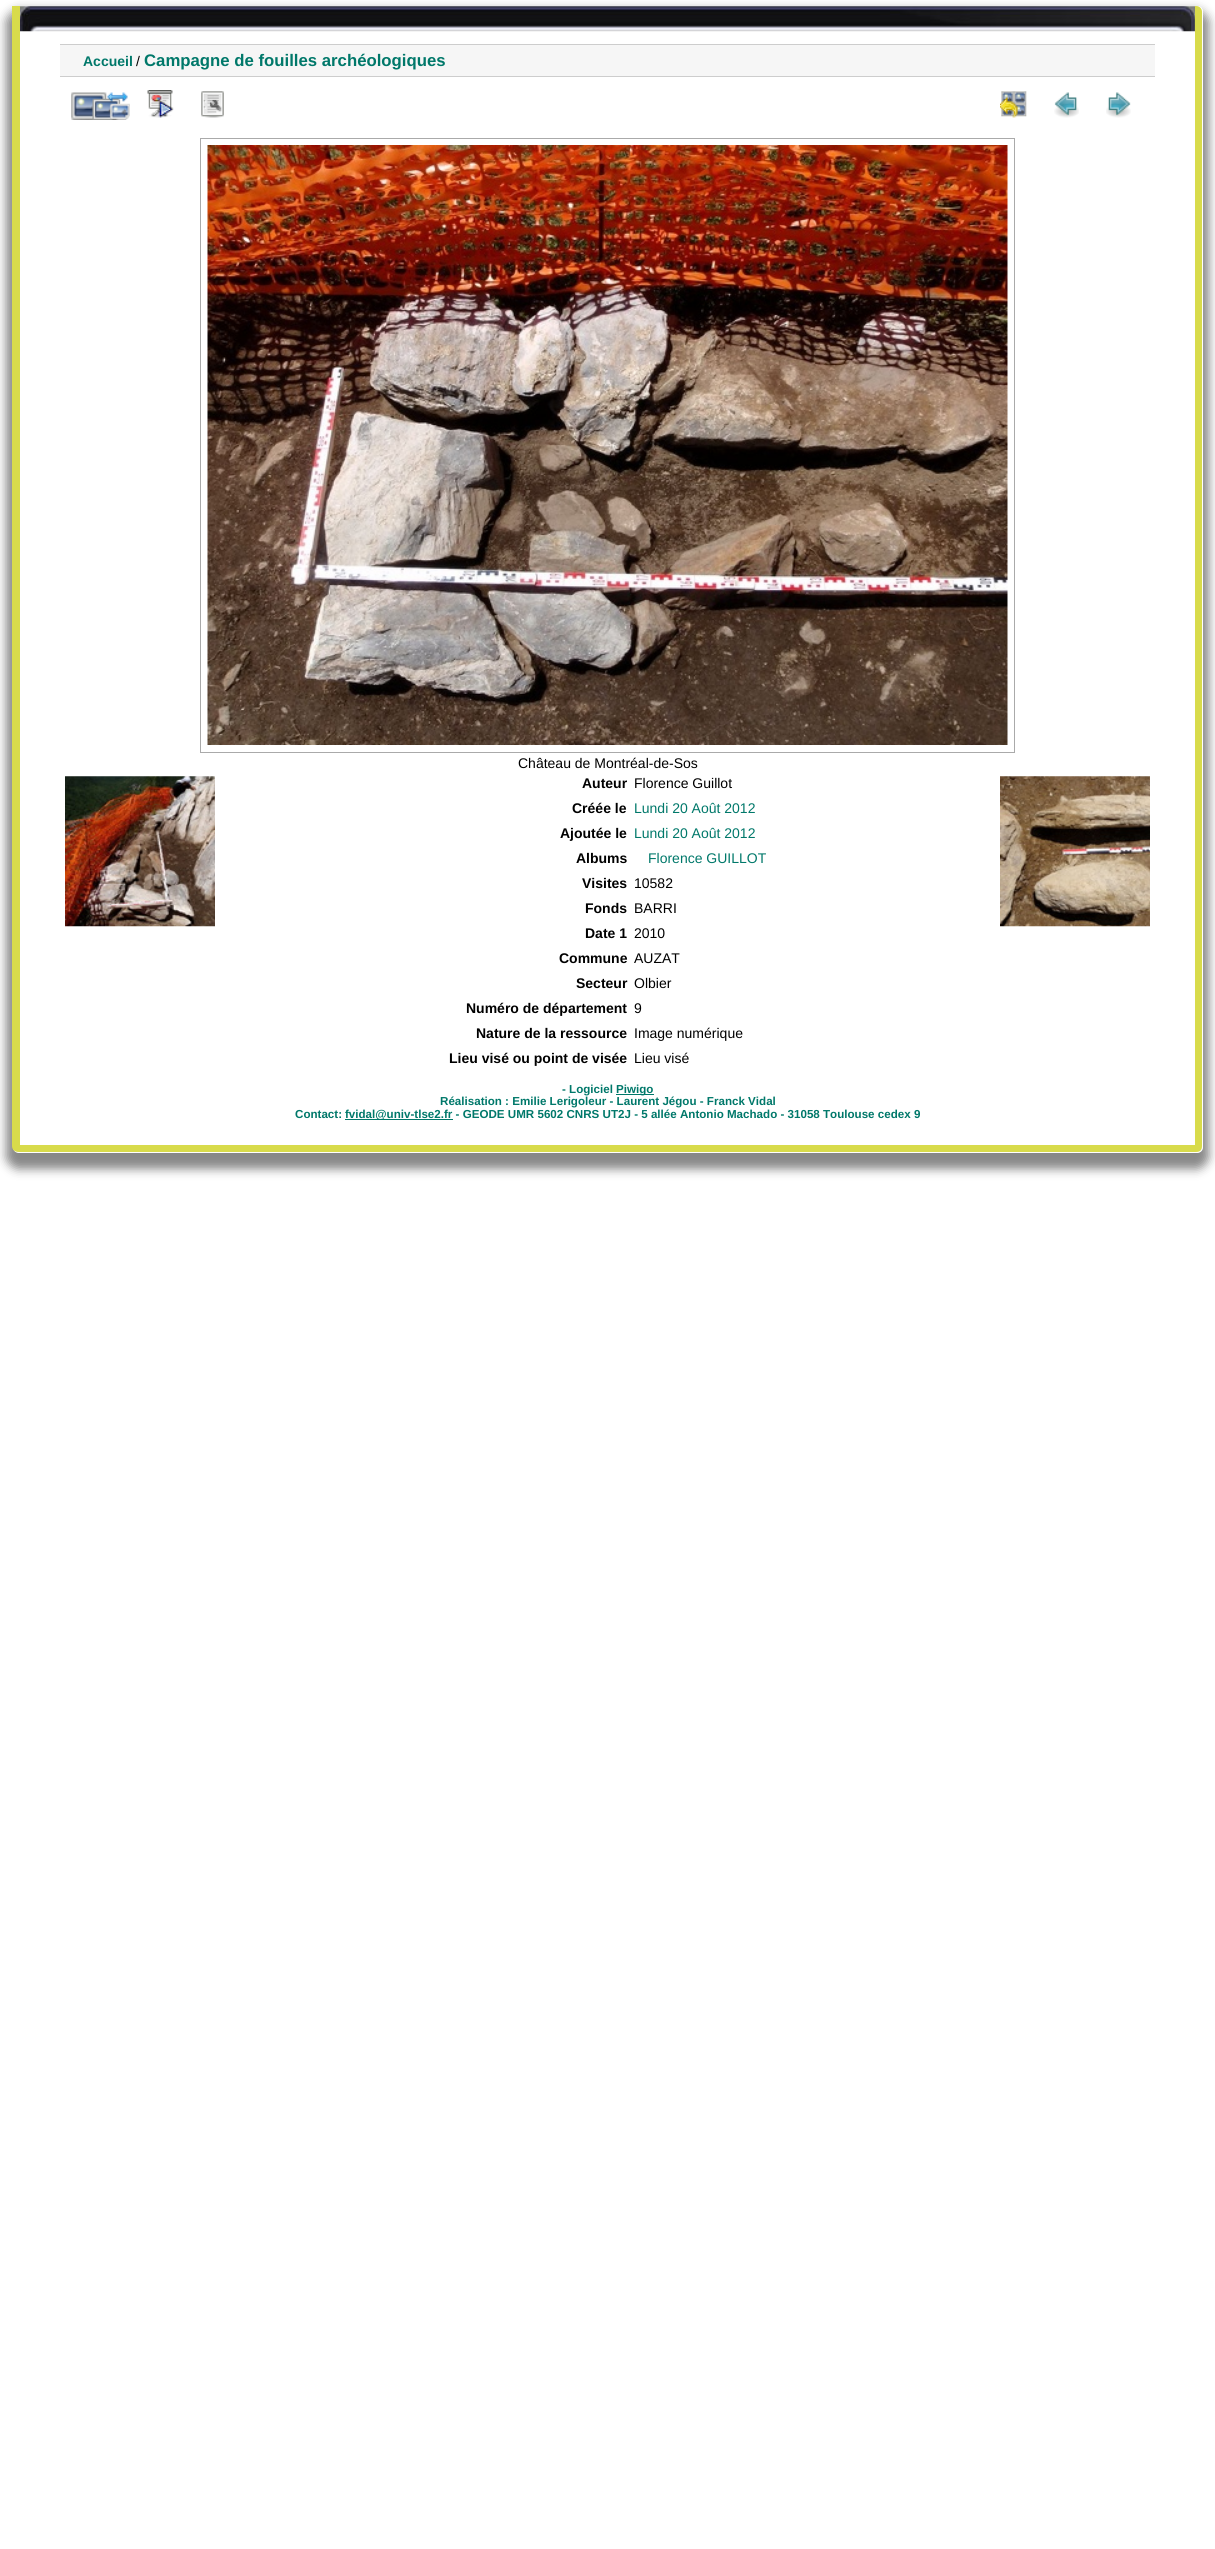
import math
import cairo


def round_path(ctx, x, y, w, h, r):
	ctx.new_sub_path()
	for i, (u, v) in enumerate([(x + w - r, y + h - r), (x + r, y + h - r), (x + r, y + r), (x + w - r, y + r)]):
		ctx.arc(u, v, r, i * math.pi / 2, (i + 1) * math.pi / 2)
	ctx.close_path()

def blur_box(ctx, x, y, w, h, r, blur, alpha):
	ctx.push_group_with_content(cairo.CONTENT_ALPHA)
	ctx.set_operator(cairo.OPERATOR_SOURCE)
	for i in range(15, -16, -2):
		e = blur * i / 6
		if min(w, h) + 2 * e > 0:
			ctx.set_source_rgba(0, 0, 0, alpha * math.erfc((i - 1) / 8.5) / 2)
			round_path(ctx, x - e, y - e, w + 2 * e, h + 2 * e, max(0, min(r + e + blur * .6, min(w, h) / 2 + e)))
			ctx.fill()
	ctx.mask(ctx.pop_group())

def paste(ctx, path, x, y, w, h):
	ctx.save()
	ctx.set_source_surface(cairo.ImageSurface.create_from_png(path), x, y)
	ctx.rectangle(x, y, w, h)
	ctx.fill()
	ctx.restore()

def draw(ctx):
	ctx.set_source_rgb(1, 1, 1)
	ctx.paint()
	ctx.save()
	ctx.set_fill_rule(cairo.FILL_RULE_EVEN_ODD)
	ctx.new_path()
	ctx.move_to(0, 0)
	ctx.line_to(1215, 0)
	ctx.line_to(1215, 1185)
	ctx.line_to(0, 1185)
	ctx.close_path()
	ctx.move_to(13, 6)
	ctx.line_to(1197, 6)
	ctx.curve_to(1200.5, 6, 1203, 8.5, 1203, 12)
	ctx.line_to(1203, 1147)
	ctx.curve_to(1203, 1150.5, 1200.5, 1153, 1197, 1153)
	ctx.line_to(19, 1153)
	ctx.curve_to(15.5, 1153, 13, 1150.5, 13, 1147)
	ctx.close_path()
	ctx.clip()
	ctx.set_source_rgb(0.533, 0.533, 0.533)
	blur_box(ctx, 6, 10, 1203, 1159, 13, 5, 1)
	ctx.restore()
	ctx.set_source_rgb(0.847, 0.859, 0.294)
	ctx.set_fill_rule(cairo.FILL_RULE_EVEN_ODD)
	ctx.new_path()
	ctx.move_to(12, 6)
	ctx.line_to(1196, 6)
	ctx.curve_to(1200, 6, 1202, 9, 1202, 12)
	ctx.line_to(1202, 1146)
	ctx.curve_to(1202, 1150, 1200, 1152, 1196, 1152)
	ctx.line_to(19, 1152)
	ctx.curve_to(15, 1152, 12, 1150, 12, 1146)
	ctx.close_path()
	ctx.move_to(20, 6)
	ctx.line_to(1195, 6)
	ctx.line_to(1195, 1145)
	ctx.line_to(20, 1145)
	ctx.close_path()
	ctx.fill()
	paste(ctx, 'media/1.png', 20, 6, 1175, 26)
	ctx.set_source_rgb(0.961, 0.961, 0.961)
	ctx.rectangle(60, 45, 1095, 31)
	ctx.fill()
	ctx.set_source_rgb(0.804, 0.804, 0.804)
	ctx.rectangle(60, 44, 1095, 1)
	ctx.rectangle(60, 76, 1095, 1)
	ctx.fill()
	ctx.select_font_face('Liberation Sans', cairo.FONT_SLANT_NORMAL, cairo.FONT_WEIGHT_BOLD)
	ctx.set_font_size(14)
	ctx.set_source_rgb(0, 0.471, 0.416)
	ctx.move_to(83, 66)
	ctx.show_text('Accueil')
	ctx.select_font_face('Liberation Sans')
	ctx.set_source_rgb(0, 0, 0)
	ctx.move_to(136, 66)
	ctx.show_text('/')
	ctx.select_font_face('Liberation Sans', cairo.FONT_SLANT_NORMAL, cairo.FONT_WEIGHT_BOLD)
	ctx.set_font_size(16.75)
	ctx.set_source_rgb(0, 0.471, 0.416)
	ctx.move_to(144, 66)
	ctx.show_text('Campagne de fouilles archéologiques')
	paste(ctx, 'media/2.png', 71, 92, 59, 28)
	paste(ctx, 'media/3.png', 147, 90, 27, 28)
	paste(ctx, 'media/4.png', 201, 91, 23, 27)
	paste(ctx, 'media/5.png', 1000, 91, 27, 27)
	paste(ctx, 'media/6.png', 1054, 92, 25, 26)
	paste(ctx, 'media/7.png', 1106, 92, 25, 26)
	ctx.rectangle(200.5, 138.5, 814, 614)
	ctx.set_source_rgb(0.667, 0.667, 0.667)
	ctx.set_line_width(1)
	ctx.stroke()
	paste(ctx, 'media/8.png', 207, 145, 801, 600)
	ctx.select_font_face('Liberation Sans')
	ctx.set_font_size(14)
	ctx.set_source_rgb(0, 0, 0)
	ctx.move_to(518, 768)
	ctx.show_text('Château de Montréal-de-Sos')
	paste(ctx, 'media/9.png', 65, 776, 150, 151)
	paste(ctx, 'media/10.png', 1000, 776, 150, 151)
	ctx.select_font_face('Liberation Sans', cairo.FONT_SLANT_NORMAL, cairo.FONT_WEIGHT_BOLD)
	ctx.move_to(582, 788)
	ctx.show_text('Auteur')
	ctx.select_font_face('Liberation Sans')
	ctx.move_to(634, 788)
	ctx.show_text('Florence Guillot')
	ctx.select_font_face('Liberation Sans', cairo.FONT_SLANT_NORMAL, cairo.FONT_WEIGHT_BOLD)
	ctx.move_to(572, 813)
	ctx.show_text('Créée le')
	ctx.select_font_face('Liberation Sans')
	ctx.set_source_rgb(0, 0.471, 0.416)
	ctx.move_to(634, 813)
	ctx.show_text('Lundi 20 Août 2012')
	ctx.select_font_face('Liberation Sans', cairo.FONT_SLANT_NORMAL, cairo.FONT_WEIGHT_BOLD)
	ctx.set_source_rgb(0, 0, 0)
	ctx.move_to(560, 838)
	ctx.show_text('Ajoutée le')
	ctx.select_font_face('Liberation Sans')
	ctx.set_source_rgb(0, 0.471, 0.416)
	ctx.move_to(634, 838)
	ctx.show_text('Lundi 20 Août 2012')
	ctx.select_font_face('Liberation Sans', cairo.FONT_SLANT_NORMAL, cairo.FONT_WEIGHT_BOLD)
	ctx.set_source_rgb(0, 0, 0)
	ctx.move_to(576, 863)
	ctx.show_text('Albums')
	ctx.select_font_face('Liberation Sans')
	ctx.set_source_rgb(0, 0.471, 0.416)
	ctx.move_to(648, 863)
	ctx.show_text('Florence GUILLOT')
	ctx.select_font_face('Liberation Sans', cairo.FONT_SLANT_NORMAL, cairo.FONT_WEIGHT_BOLD)
	ctx.set_source_rgb(0, 0, 0)
	ctx.move_to(582, 888)
	ctx.show_text('Visites')
	ctx.select_font_face('Liberation Sans')
	ctx.move_to(634, 888)
	ctx.show_text('10582')
	ctx.select_font_face('Liberation Sans', cairo.FONT_SLANT_NORMAL, cairo.FONT_WEIGHT_BOLD)
	ctx.move_to(585, 913)
	ctx.show_text('Fonds')
	ctx.select_font_face('Liberation Sans')
	ctx.move_to(634, 913)
	ctx.show_text('BARRI')
	ctx.select_font_face('Liberation Sans', cairo.FONT_SLANT_NORMAL, cairo.FONT_WEIGHT_BOLD)
	ctx.move_to(585, 938)
	ctx.show_text('Date 1')
	ctx.select_font_face('Liberation Sans')
	ctx.move_to(634, 938)
	ctx.show_text('2010')
	ctx.select_font_face('Liberation Sans', cairo.FONT_SLANT_NORMAL, cairo.FONT_WEIGHT_BOLD)
	ctx.move_to(559, 963)
	ctx.show_text('Commune')
	ctx.select_font_face('Liberation Sans')
	ctx.move_to(634, 963)
	ctx.show_text('AUZAT')
	ctx.select_font_face('Liberation Sans', cairo.FONT_SLANT_NORMAL, cairo.FONT_WEIGHT_BOLD)
	ctx.move_to(576, 988)
	ctx.show_text('Secteur')
	ctx.select_font_face('Liberation Sans')
	ctx.move_to(634, 988)
	ctx.show_text('Olbier')
	ctx.select_font_face('Liberation Sans', cairo.FONT_SLANT_NORMAL, cairo.FONT_WEIGHT_BOLD)
	ctx.move_to(466, 1013)
	ctx.show_text('Numéro de département')
	ctx.select_font_face('Liberation Sans')
	ctx.move_to(634, 1013)
	ctx.show_text('9')
	ctx.select_font_face('Liberation Sans', cairo.FONT_SLANT_NORMAL, cairo.FONT_WEIGHT_BOLD)
	ctx.move_to(476, 1038)
	ctx.show_text('Nature de la ressource')
	ctx.select_font_face('Liberation Sans')
	ctx.move_to(634, 1038)
	ctx.show_text('Image numérique')
	ctx.select_font_face('Liberation Sans', cairo.FONT_SLANT_NORMAL, cairo.FONT_WEIGHT_BOLD)
	ctx.move_to(449, 1063)
	ctx.show_text('Lieu visé ou point de visée')
	ctx.select_font_face('Liberation Sans')
	ctx.move_to(634, 1063)
	ctx.show_text('Lieu visé')
	ctx.select_font_face('Liberation Sans', cairo.FONT_SLANT_NORMAL, cairo.FONT_WEIGHT_BOLD)
	ctx.set_font_size(11.6)
	ctx.set_source_rgb(0, 0.471, 0.416)
	ctx.move_to(562, 1093)
	ctx.show_text('- Logiciel')
	ctx.rectangle(616, 1094, 38, 1)
	ctx.fill()
	for x, y, s in [
		(616, 1093, 'Piwigo'),
		(440, 1105, 'Réalisation : Emilie Lerigoleur - Laurent Jégou - Franck Vidal'),
		(295, 1118, 'Contact:'),
	]:
		ctx.move_to(x, y)
		ctx.show_text(s)
	ctx.rectangle(345, 1119, 108, 1)
	ctx.fill()
	ctx.move_to(345, 1118)
	ctx.show_text('fvidal@univ-tlse2.fr - GEODE UMR 5602 CNRS UT2J - 5 allée Antonio Machado - 31058 Toulouse cedex 9')


surface = cairo.ImageSurface(cairo.FORMAT_RGB24, 1215, 2549)
ctx = cairo.Context(surface)
options = cairo.FontOptions()
options.set_hint_metrics(cairo.HINT_METRICS_OFF)
options.set_hint_style(cairo.HINT_STYLE_NONE)
ctx.set_font_options(options)
ctx.set_miter_limit(4)
draw(ctx)
surface.write_to_png('image.png')
